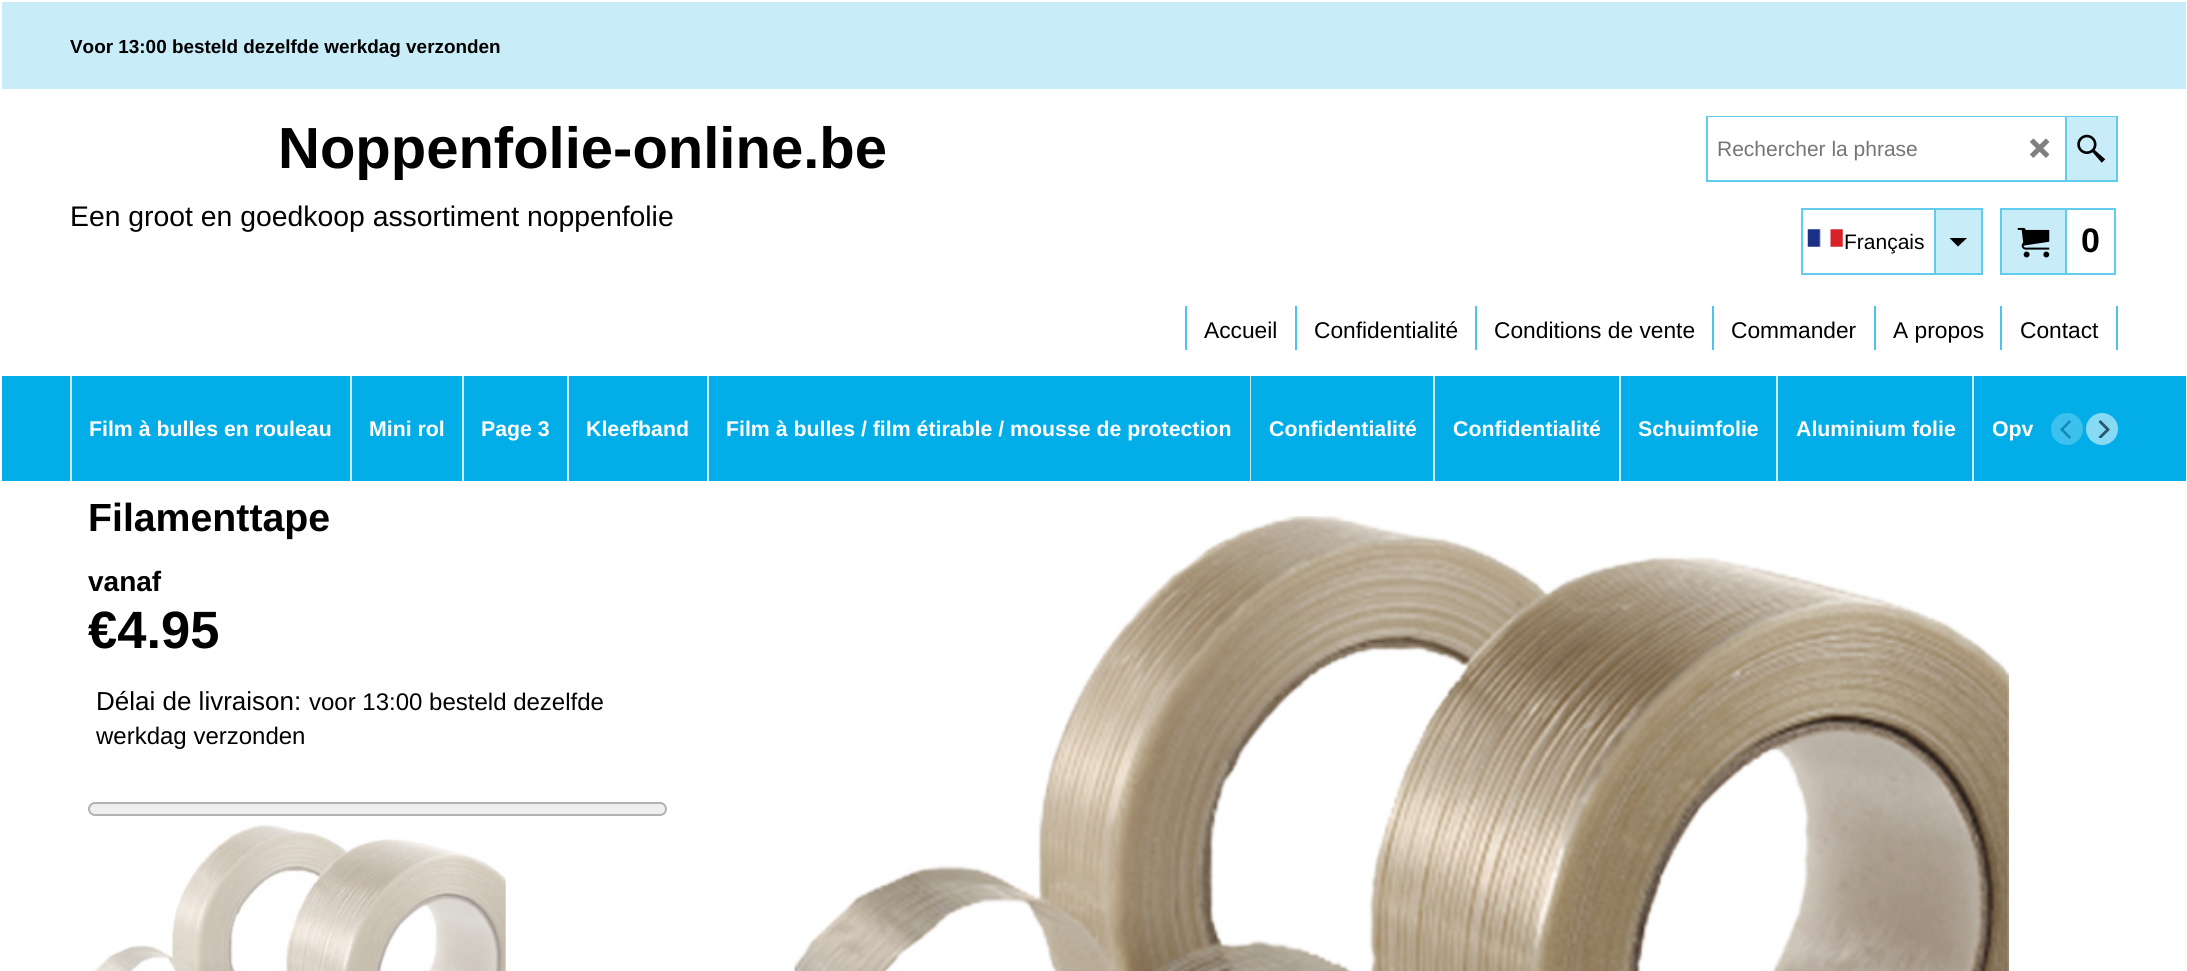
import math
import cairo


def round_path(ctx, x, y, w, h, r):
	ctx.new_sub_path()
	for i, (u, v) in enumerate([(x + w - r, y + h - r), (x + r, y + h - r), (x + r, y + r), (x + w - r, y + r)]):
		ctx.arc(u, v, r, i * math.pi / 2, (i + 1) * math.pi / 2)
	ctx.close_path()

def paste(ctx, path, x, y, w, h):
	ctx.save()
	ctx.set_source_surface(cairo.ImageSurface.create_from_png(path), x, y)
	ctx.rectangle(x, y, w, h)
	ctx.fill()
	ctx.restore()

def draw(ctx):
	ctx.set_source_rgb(1, 1, 1)
	ctx.paint()
	ctx.set_source_rgb(0.784, 0.929, 0.976)
	ctx.rectangle(2, 2, 2184, 87)
	ctx.fill()
	ctx.select_font_face('Liberation Sans', cairo.FONT_SLANT_NORMAL, cairo.FONT_WEIGHT_BOLD)
	ctx.set_font_size(18.9)
	ctx.set_source_rgb(0, 0, 0)
	ctx.move_to(70, 53)
	ctx.show_text('Voor 13:00 besteld dezelfde werkdag verzonden')
	ctx.set_font_size(58)
	ctx.move_to(278, 168)
	ctx.show_text('Noppenfolie-online.be')
	ctx.select_font_face('Liberation Sans')
	ctx.set_font_size(28.35)
	ctx.move_to(70, 226)
	ctx.show_text('Een groot en goedkoop assortiment noppenfolie')
	ctx.rectangle(1707, 117, 410, 64)
	ctx.set_source_rgb(0.384, 0.8, 0.937)
	ctx.stroke()
	ctx.set_source_rgb(1, 1, 1)
	ctx.rectangle(1708, 117, 357, 1)
	ctx.fill()
	ctx.set_font_size(21)
	ctx.set_source_rgb(0.459, 0.459, 0.459)
	ctx.move_to(1717, 156)
	ctx.show_text('Rechercher la phrase')
	paste(ctx, 'media/1.png', 2030, 138, 20, 20)
	ctx.set_source_rgb(0.784, 0.929, 0.976)
	ctx.rectangle(2067, 117, 49, 63)
	ctx.fill()
	ctx.set_source_rgb(0.384, 0.8, 0.937)
	ctx.rectangle(2065, 117, 2, 63)
	ctx.fill()
	paste(ctx, 'media/2.png', 2077, 134, 29, 29)
	ctx.rectangle(1802, 209, 180, 65)
	ctx.stroke()
	paste(ctx, 'media/3.png', 1807, 229, 36, 18)
	ctx.set_source_rgb(0, 0, 0)
	ctx.move_to(1844, 249)
	ctx.show_text('Français')
	ctx.set_source_rgb(0.784, 0.929, 0.976)
	ctx.rectangle(1936, 210, 45, 63)
	ctx.fill()
	ctx.set_source_rgb(0.384, 0.8, 0.937)
	ctx.rectangle(1934, 210, 2, 63)
	ctx.fill()
	ctx.set_source_rgb(0, 0, 0)
	ctx.new_path()
	ctx.move_to(1949.5, 238)
	ctx.line_to(1958, 246.5)
	ctx.line_to(1967, 238)
	ctx.close_path()
	ctx.fill()
	ctx.set_source_rgb(0.784, 0.929, 0.976)
	ctx.rectangle(2001, 209, 65, 65)
	ctx.fill_preserve()
	ctx.set_source_rgb(0.384, 0.8, 0.937)
	ctx.stroke()
	paste(ctx, 'media/4.png', 2017, 227, 33, 31)
	ctx.rectangle(2066, 209, 49, 65)
	ctx.stroke()
	ctx.select_font_face('Liberation Sans', cairo.FONT_SLANT_NORMAL, cairo.FONT_WEIGHT_BOLD)
	ctx.set_font_size(34)
	ctx.set_source_rgb(0, 0, 0)
	ctx.move_to(2081, 252)
	ctx.show_text('0')
	ctx.set_source_rgb(0.29, 0.769, 0.929)
	ctx.rectangle(1185, 306, 2, 44)
	ctx.fill()
	ctx.select_font_face('Liberation Sans')
	ctx.set_font_size(22.75)
	ctx.set_source_rgb(0, 0, 0)
	ctx.move_to(1204, 338)
	ctx.show_text('Accueil')
	ctx.set_source_rgb(0.29, 0.769, 0.929)
	ctx.rectangle(1295, 306, 2, 44)
	ctx.fill()
	ctx.set_source_rgb(0, 0, 0)
	ctx.move_to(1314, 338)
	ctx.show_text('Confidentialité')
	ctx.set_source_rgb(0.29, 0.769, 0.929)
	ctx.rectangle(1475, 306, 2, 44)
	ctx.fill()
	ctx.set_source_rgb(0, 0, 0)
	ctx.move_to(1494, 338)
	ctx.show_text('Conditions de vente')
	ctx.set_source_rgb(0.29, 0.769, 0.929)
	ctx.rectangle(1712, 306, 2, 44)
	ctx.fill()
	ctx.set_source_rgb(0, 0, 0)
	ctx.move_to(1731, 338)
	ctx.show_text('Commander')
	ctx.set_source_rgb(0.29, 0.769, 0.929)
	ctx.rectangle(1874, 306, 2, 44)
	ctx.fill()
	ctx.set_source_rgb(0, 0, 0)
	ctx.move_to(1893, 338)
	ctx.show_text('A propos')
	ctx.set_source_rgb(0.29, 0.769, 0.929)
	ctx.rectangle(2000, 306, 2, 44)
	ctx.fill()
	ctx.set_source_rgb(0, 0, 0)
	ctx.move_to(2020, 338)
	ctx.show_text('Contact')
	ctx.set_source_rgb(0.29, 0.769, 0.929)
	ctx.rectangle(2116, 306, 2, 44)
	ctx.fill()
	ctx.set_source_rgb(0.012, 0.682, 0.91)
	ctx.rectangle(2, 376, 2184, 105)
	ctx.fill()
	ctx.set_source_rgb(0.784, 0.929, 0.976)
	ctx.rectangle(70, 376, 2, 105)
	ctx.fill()
	ctx.select_font_face('Liberation Sans', cairo.FONT_SLANT_NORMAL, cairo.FONT_WEIGHT_BOLD)
	ctx.set_font_size(21.3)
	ctx.set_source_rgb(1, 1, 1)
	ctx.move_to(89, 436)
	ctx.show_text('Film à bulles en rouleau')
	ctx.set_source_rgb(0.784, 0.929, 0.976)
	ctx.rectangle(350, 376, 2, 105)
	ctx.fill()
	ctx.set_source_rgb(1, 1, 1)
	ctx.move_to(369, 436)
	ctx.show_text('Mini rol')
	ctx.set_source_rgb(0.784, 0.929, 0.976)
	ctx.rectangle(462, 376, 2, 105)
	ctx.fill()
	ctx.set_source_rgb(1, 1, 1)
	ctx.move_to(481, 436)
	ctx.show_text('Page 3')
	ctx.set_source_rgb(0.784, 0.929, 0.976)
	ctx.rectangle(567, 376, 2, 105)
	ctx.fill()
	ctx.set_source_rgb(1, 1, 1)
	ctx.move_to(586, 436)
	ctx.show_text('Kleefband')
	ctx.set_source_rgb(0.784, 0.929, 0.976)
	ctx.rectangle(707, 376, 2, 105)
	ctx.fill()
	ctx.set_source_rgb(1, 1, 1)
	ctx.move_to(726, 436)
	ctx.show_text('Film à bulles / film étirable / mousse de protection')
	ctx.set_source_rgb(0.784, 0.929, 0.976)
	ctx.rectangle(1250, 376, 1, 105)
	ctx.fill()
	ctx.set_source_rgb(1, 1, 1)
	ctx.move_to(1269, 436)
	ctx.show_text('Confidentialité')
	ctx.set_source_rgb(0.784, 0.929, 0.976)
	ctx.rectangle(1433, 376, 2, 105)
	ctx.fill()
	ctx.set_source_rgb(1, 1, 1)
	ctx.move_to(1453, 436)
	ctx.show_text('Confidentialité')
	ctx.set_source_rgb(0.784, 0.929, 0.976)
	ctx.rectangle(1619, 376, 2, 105)
	ctx.fill()
	ctx.set_source_rgb(1, 1, 1)
	ctx.move_to(1638, 436)
	ctx.show_text('Schuimfolie')
	ctx.set_source_rgb(0.784, 0.929, 0.976)
	ctx.rectangle(1776, 376, 2, 105)
	ctx.fill()
	ctx.set_source_rgb(1, 1, 1)
	ctx.move_to(1796, 436)
	ctx.show_text('Aluminium folie')
	ctx.set_source_rgb(0.784, 0.929, 0.976)
	ctx.rectangle(1972, 376, 2, 105)
	ctx.fill()
	ctx.set_source_rgb(1, 1, 1)
	ctx.move_to(1992, 436)
	ctx.show_text('Opv')
	ctx.set_source_rgb(0.235, 0.753, 0.929)
	ctx.new_path()
	ctx.arc(2067, 429, 16, 0, 2 * math.pi)
	ctx.fill()
	ctx.set_source_rgb(0.067, 0.537, 0.698)
	ctx.new_path()
	ctx.move_to(2060, 429.5)
	ctx.line_to(2069.5, 439)
	ctx.line_to(2071, 437)
	ctx.line_to(2063.5, 429.5)
	ctx.line_to(2071, 422)
	ctx.line_to(2069.5, 420)
	ctx.close_path()
	ctx.fill()
	ctx.set_source_rgb(0.529, 0.851, 0.957)
	ctx.arc(2102, 429, 16, 0, 2 * math.pi)
	ctx.fill()
	ctx.save()
	ctx.rectangle(2093, 420, 18, 18)
	ctx.clip()
	ctx.set_source_rgb(0.145, 0.345, 0.412)
	ctx.new_path()
	ctx.move_to(2110, 429.5)
	ctx.line_to(2100.5, 420)
	ctx.line_to(2098.5, 422)
	ctx.line_to(2106, 429.5)
	ctx.line_to(2098.5, 437)
	ctx.line_to(2100.5, 439)
	ctx.close_path()
	ctx.fill()
	ctx.restore()
	ctx.set_font_size(39.25)
	ctx.set_source_rgb(0, 0, 0)
	ctx.move_to(88, 531)
	ctx.show_text('Filamenttape')
	ctx.set_font_size(28)
	ctx.move_to(88, 591)
	ctx.show_text('vanaf')
	ctx.set_font_size(52.5)
	ctx.move_to(88, 648)
	ctx.show_text('€4.95')
	ctx.select_font_face('Liberation Sans')
	ctx.set_font_size(26)
	ctx.move_to(96, 710)
	ctx.show_text('Délai de livraison:')
	ctx.set_font_size(24)
	ctx.move_to(309, 710)
	ctx.show_text('voor 13:00 besteld dezelfde')
	ctx.move_to(96, 744)
	ctx.show_text('werkdag verzonden')
	ctx.set_source_rgb(0.937, 0.937, 0.937)
	round_path(ctx, 89, 803, 577, 12, 6)
	ctx.fill_preserve()
	ctx.set_source_rgb(0.698, 0.698, 0.698)
	ctx.stroke()
	paste(ctx, 'media/5.png', 88, 824, 418, 147)
	paste(ctx, 'media/6.png', 794, 515, 1215, 456)


surface = cairo.ImageSurface(cairo.FORMAT_RGB24, 2187, 971)
ctx = cairo.Context(surface)
options = cairo.FontOptions()
options.set_hint_metrics(cairo.HINT_METRICS_OFF)
options.set_hint_style(cairo.HINT_STYLE_NONE)
ctx.set_font_options(options)
ctx.set_miter_limit(4)
draw(ctx)
surface.write_to_png('image.png')
